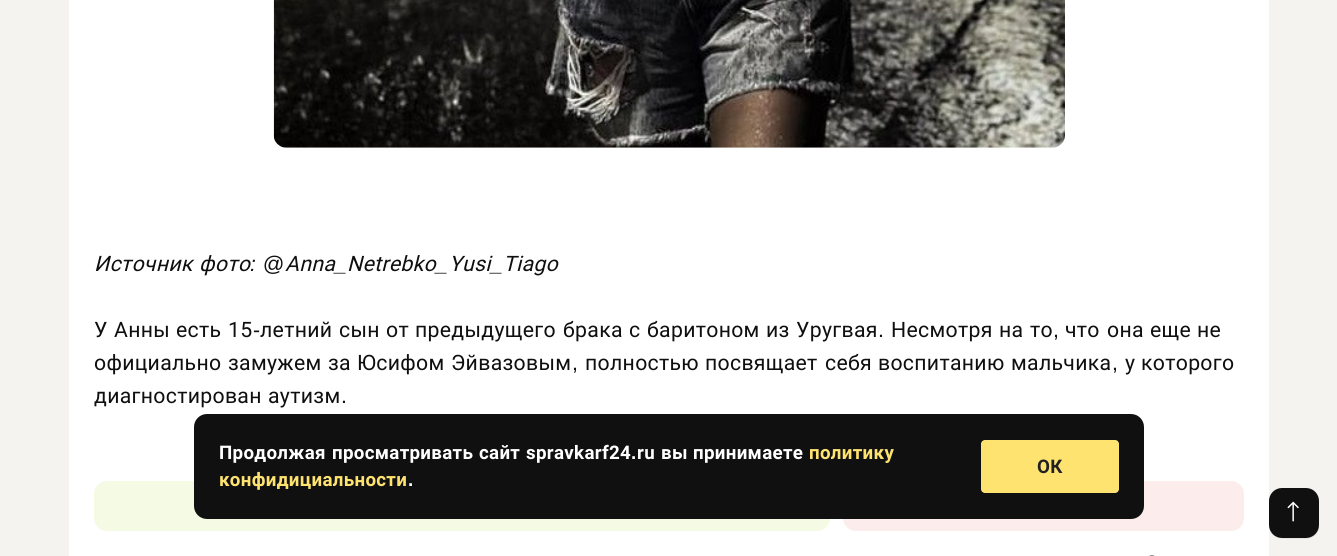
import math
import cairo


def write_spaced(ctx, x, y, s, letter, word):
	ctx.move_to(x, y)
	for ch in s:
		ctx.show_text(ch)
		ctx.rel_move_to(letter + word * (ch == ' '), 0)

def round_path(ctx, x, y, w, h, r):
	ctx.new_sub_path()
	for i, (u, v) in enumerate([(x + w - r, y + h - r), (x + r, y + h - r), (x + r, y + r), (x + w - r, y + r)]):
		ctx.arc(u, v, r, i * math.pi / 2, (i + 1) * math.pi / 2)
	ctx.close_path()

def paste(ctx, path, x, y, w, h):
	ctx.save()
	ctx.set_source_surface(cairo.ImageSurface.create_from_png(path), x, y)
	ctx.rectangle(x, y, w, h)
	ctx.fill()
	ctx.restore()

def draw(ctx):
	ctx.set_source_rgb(0.957, 0.953, 0.941)
	ctx.paint()
	ctx.set_source_rgb(1, 1, 1)
	ctx.rectangle(69, 0, 1200, 556)
	ctx.fill()
	paste(ctx, 'media/1.png', 273, 0, 792, 148)
	ctx.select_font_face('Roboto', cairo.FONT_SLANT_ITALIC)
	ctx.set_font_size(21.25)
	ctx.set_source_rgb(0.059, 0.059, 0.063)
	write_spaced(ctx, 94, 271, 'Источник', 0.3, 0)
	write_spaced(ctx, 199, 271, 'фото', 0.3, 0)
	ctx.select_font_face('Liberation Sans', cairo.FONT_SLANT_ITALIC)
	write_spaced(ctx, 250, 271, ': @', 0.3, 0)
	ctx.select_font_face('Roboto', cairo.FONT_SLANT_ITALIC)
	write_spaced(ctx, 285, 271, 'Anna', 0.3, 0)
	ctx.select_font_face('Liberation Sans', cairo.FONT_SLANT_ITALIC)
	write_spaced(ctx, 335, 271, '_', 0.3, 0)
	ctx.select_font_face('Roboto', cairo.FONT_SLANT_ITALIC)
	write_spaced(ctx, 347, 271, 'Netrebko', 0.3, 0)
	ctx.select_font_face('Liberation Sans', cairo.FONT_SLANT_ITALIC)
	write_spaced(ctx, 436, 271, '_', 0.3, 0)
	ctx.select_font_face('Roboto', cairo.FONT_SLANT_ITALIC)
	write_spaced(ctx, 449, 271, 'Yusi', 0.3, 0)
	ctx.select_font_face('Liberation Sans', cairo.FONT_SLANT_ITALIC)
	write_spaced(ctx, 491, 271, '_', 0.3, 0)
	ctx.select_font_face('Roboto', cairo.FONT_SLANT_ITALIC)
	write_spaced(ctx, 503, 271, 'Tiago', 0.3, 0)
	ctx.select_font_face('Roboto')
	for x, y, s in [
		(94, 337, 'У'),
		(114, 337, 'Анны'),
		(176, 337, 'есть'),
		(228, 337, '15'),
	]:
		write_spaced(ctx, x, y, s, 0.3, 0)
	ctx.select_font_face('Liberation Sans')
	write_spaced(ctx, 253, 337, '-', 0.3, 0)
	ctx.select_font_face('Roboto')
	for x, y, s in [
		(260, 337, 'летний'),
		(339, 337, 'сын'),
		(386, 337, 'от'),
		(415, 337, 'предыдущего'),
		(563, 337, 'брака'),
		(629, 337, 'с'),
		(647, 337, 'баритоном'),
		(766, 337, 'из'),
		(796, 337, 'Уругвая'),
		(891, 337, 'Несмотря'),
		(999, 337, 'на'),
		(1030, 337, 'то'),
		(1065, 337, 'что'),
		(1107, 337, 'она'),
		(1150, 337, 'еще'),
		(1197, 337, 'не'),
	]:
		write_spaced(ctx, x, y, s, 0.3, 0)
	ctx.select_font_face('Liberation Sans')
	write_spaced(ctx, 878, 337, '.', 0.3, 0)
	write_spaced(ctx, 1053, 337, ',', 0.3, 0)
	ctx.select_font_face('Roboto')
	for x, y, s in [
		(94, 370, 'официально'),
		(228, 370, 'замужем'),
		(328, 370, 'за'),
		(357, 370, 'Юсифом'),
		(451, 370, 'Эйвазовым'),
	]:
		write_spaced(ctx, x, y, s, 0.3, 0)
	ctx.select_font_face('Liberation Sans')
	write_spaced(ctx, 572, 370, ',', 0.3, 0)
	ctx.select_font_face('Roboto')
	for x, y, s in [
		(585, 370, 'полностью'),
		(705, 370, 'посвящает'),
		(825, 370, 'себя'),
		(878, 370, 'воспитанию'),
		(1011, 370, 'мальчика'),
	]:
		write_spaced(ctx, x, y, s, 0.3, 0)
	ctx.select_font_face('Liberation Sans')
	write_spaced(ctx, 1112, 370, ',', 0.3, 0)
	ctx.select_font_face('Roboto')
	for x, y, s in [
		(1125, 370, 'у'),
		(1141, 370, 'которого'),
		(94, 403, 'диагностирован'),
		(268, 403, 'аутизм'),
	]:
		write_spaced(ctx, x, y, s, 0.3, 0)
	ctx.select_font_face('Liberation Sans')
	write_spaced(ctx, 341, 403, '.', 0.3, 0)
	ctx.set_source_rgb(0.957, 0.98, 0.89)
	round_path(ctx, 94, 481, 736, 50, 13)
	ctx.fill()
	ctx.set_source_rgb(0.992, 0.925, 0.925)
	round_path(ctx, 843, 481, 401, 50, 13)
	ctx.fill()
	paste(ctx, 'media/2.png', 1149, 555, 6, 1)
	ctx.set_source_rgb(0.063, 0.063, 0.063)
	round_path(ctx, 194, 414, 950, 105, 13)
	ctx.fill()
	ctx.select_font_face('Roboto', cairo.FONT_SLANT_NORMAL, cairo.FONT_WEIGHT_BOLD)
	ctx.set_font_size(18.75)
	ctx.set_source_rgb(1, 1, 1)
	for x, y, s in [
		(219, 459, 'Продолжая'),
		(332, 459, 'просматривать'),
		(479, 459, 'сайт'),
		(526, 459, 'spravkarf24'),
	]:
		write_spaced(ctx, x, y, s, 0.3, 0)
	ctx.select_font_face('Liberation Sans', cairo.FONT_SLANT_NORMAL, cairo.FONT_WEIGHT_BOLD)
	write_spaced(ctx, 631, 459, '.', 0.3, 0)
	ctx.select_font_face('Roboto', cairo.FONT_SLANT_NORMAL, cairo.FONT_WEIGHT_BOLD)
	for x, y, s in [
		(637, 459, 'ru'),
		(661, 459, 'вы'),
		(693, 459, 'принимаете'),
	]:
		write_spaced(ctx, x, y, s, 0.3, 0)
	ctx.set_source_rgb(1, 0.89, 0.443)
	write_spaced(ctx, 809, 459, 'политику', 0.3, 0)
	write_spaced(ctx, 219, 486, 'конфидициальности', 0.3, 0)
	ctx.select_font_face('Liberation Sans', cairo.FONT_SLANT_NORMAL, cairo.FONT_WEIGHT_BOLD)
	ctx.set_source_rgb(1, 1, 1)
	write_spaced(ctx, 408, 486, '.', 0.3, 0)
	ctx.set_source_rgb(1, 0.89, 0.443)
	round_path(ctx, 981, 440, 138, 53, 4)
	ctx.fill()
	ctx.select_font_face('Roboto', cairo.FONT_SLANT_NORMAL, cairo.FONT_WEIGHT_BOLD)
	ctx.set_source_rgb(0.129, 0.129, 0.129)
	write_spaced(ctx, 1037, 473, 'ОК', 0.3, 0)
	ctx.set_source_rgb(0.898, 0.894, 0.882)
	ctx.new_path()
	ctx.move_to(1269, 528)
	ctx.curve_to(1272, 541, 1285, 539, 1294, 539)
	ctx.curve_to(1303, 539, 1316, 541, 1319, 529)
	ctx.line_to(1319, 499)
	ctx.line_to(1318, 528)
	ctx.line_to(1317, 532)
	ctx.curve_to(1312, 539, 1301, 538, 1294, 538)
	ctx.curve_to(1285, 538, 1272, 539, 1269, 528)
	ctx.close_path()
	ctx.fill()
	ctx.set_source_rgb(0.063, 0.063, 0.063)
	round_path(ctx, 1269, 488, 50, 50, 13)
	ctx.fill()
	paste(ctx, 'media/3.png', 1287, 501, 12, 21)


surface = cairo.ImageSurface(cairo.FORMAT_RGB24, 1337, 556)
ctx = cairo.Context(surface)
options = cairo.FontOptions()
options.set_hint_metrics(cairo.HINT_METRICS_OFF)
options.set_hint_style(cairo.HINT_STYLE_NONE)
ctx.set_font_options(options)
ctx.set_miter_limit(4)
draw(ctx)
surface.write_to_png('image.png')
